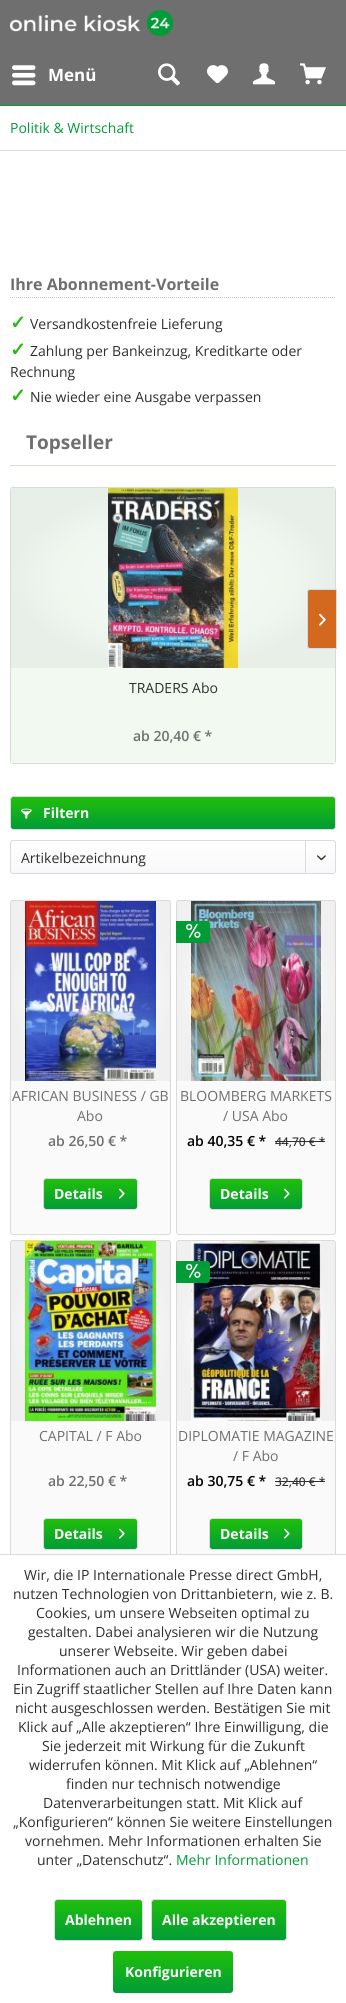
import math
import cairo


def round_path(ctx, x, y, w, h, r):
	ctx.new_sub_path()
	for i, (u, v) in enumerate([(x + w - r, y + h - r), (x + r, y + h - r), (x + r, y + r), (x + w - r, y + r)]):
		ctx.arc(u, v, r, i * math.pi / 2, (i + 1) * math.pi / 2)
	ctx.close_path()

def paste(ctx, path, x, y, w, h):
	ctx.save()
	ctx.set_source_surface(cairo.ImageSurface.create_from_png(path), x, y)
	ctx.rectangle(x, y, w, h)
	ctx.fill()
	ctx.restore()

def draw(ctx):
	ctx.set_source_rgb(1, 1, 1)
	ctx.paint()
	ctx.set_source_rgb(0.435, 0.435, 0.435)
	ctx.rectangle(0, 0, 346, 105)
	ctx.fill()
	ctx.set_source_rgb(0.004, 0.612, 0.212)
	ctx.rectangle(0, 105, 346, 1)
	ctx.fill()
	paste(ctx, 'media/1.png', 10, 10, 163, 26)
	paste(ctx, 'media/2.png', 12, 65, 24, 21)
	ctx.select_font_face('Open Sans', cairo.FONT_SLANT_NORMAL, cairo.FONT_WEIGHT_BOLD)
	ctx.set_font_size(17)
	ctx.set_source_rgb(1, 1, 1)
	ctx.move_to(48, 81)
	ctx.show_text('Menü')
	paste(ctx, 'media/3.png', 158, 63, 22, 23)
	paste(ctx, 'media/4.png', 207, 65, 21, 19)
	paste(ctx, 'media/5.png', 253, 63, 22, 22)
	paste(ctx, 'media/6.png', 300, 63, 26, 22)
	ctx.set_source_rgb(0.855, 0.855, 0.898)
	ctx.rectangle(0, 150, 346, 1)
	ctx.fill()
	ctx.select_font_face('Open Sans')
	ctx.set_font_size(14)
	ctx.set_source_rgb(0.004, 0.612, 0.212)
	ctx.move_to(10, 133)
	ctx.show_text('Politik & Wirtschaft')
	ctx.new_path()
	ctx.move_to(10, 297.5)
	ctx.line_to(336, 297.5)
	ctx.set_source_rgb(0.773, 0.773, 0.773)
	ctx.set_line_width(1)
	ctx.set_dash([1, 1])
	ctx.stroke()
	ctx.select_font_face('Open Sans', cairo.FONT_SLANT_NORMAL, cairo.FONT_WEIGHT_BOLD)
	ctx.set_font_size(16)
	ctx.set_source_rgb(0.435, 0.435, 0.435)
	ctx.move_to(10, 290)
	ctx.show_text('Ihre Abonnement-Vorteile')
	ctx.select_font_face('DejaVu Sans', cairo.FONT_SLANT_NORMAL, cairo.FONT_WEIGHT_BOLD)
	ctx.set_font_size(19)
	ctx.set_source_rgb(0.125, 0.749, 0.039)
	ctx.move_to(10, 329)
	ctx.show_text('✓')
	ctx.select_font_face('Open Sans')
	ctx.set_font_size(14)
	ctx.set_source_rgb(0.184, 0.184, 0.184)
	ctx.move_to(30, 329)
	ctx.show_text('Versandkostenfreie Lieferung')
	ctx.select_font_face('DejaVu Sans', cairo.FONT_SLANT_NORMAL, cairo.FONT_WEIGHT_BOLD)
	ctx.set_font_size(19)
	ctx.set_source_rgb(0.125, 0.749, 0.039)
	ctx.move_to(10, 356)
	ctx.show_text('✓')
	ctx.select_font_face('Open Sans')
	ctx.set_font_size(14)
	ctx.set_source_rgb(0.184, 0.184, 0.184)
	ctx.move_to(30, 356)
	ctx.show_text('Zahlung per Bankeinzug, Kreditkarte oder')
	ctx.move_to(10, 377)
	ctx.show_text('Rechnung')
	ctx.select_font_face('DejaVu Sans', cairo.FONT_SLANT_NORMAL, cairo.FONT_WEIGHT_BOLD)
	ctx.set_font_size(19)
	ctx.set_source_rgb(0.125, 0.749, 0.039)
	ctx.move_to(10, 402)
	ctx.show_text('✓')
	ctx.select_font_face('Open Sans')
	ctx.set_font_size(14)
	ctx.set_source_rgb(0.184, 0.184, 0.184)
	ctx.move_to(30, 402)
	ctx.show_text('Nie wieder eine Ausgabe verpassen')
	ctx.set_source_rgb(0.855, 0.855, 0.898)
	ctx.rectangle(10, 465, 326, 1)
	ctx.fill()
	ctx.select_font_face('Open Sans', cairo.FONT_SLANT_NORMAL, cairo.FONT_WEIGHT_BOLD)
	ctx.set_font_size(19)
	ctx.set_source_rgb(0.435, 0.435, 0.435)
	ctx.move_to(26, 449)
	ctx.show_text('Topseller')
	round_path(ctx, 10.5, 487.5, 325, 276, 2.5)
	ctx.set_source_rgb(0.855, 0.855, 0.855)
	ctx.set_dash([])
	ctx.stroke()
	gradient = cairo.RadialGradient(0, 0, 0, 0, 0, 1)
	gradient.set_matrix(cairo.Matrix(1 / 162, 0, 0, 1 / 90, -1 * 173 / 162, -1 * 578 / 90))
	gradient.add_color_stop_rgba(0.5, 0.945, 0.973, 0.945, 1)
	gradient.add_color_stop_rgba(0.74, 0.937, 0.965, 0.937, 1)
	gradient.add_color_stop_rgba(1, 0.91, 0.937, 0.91, 1)
	ctx.set_source(gradient)
	ctx.rectangle(11, 488, 324, 180)
	ctx.fill()
	ctx.set_source_rgb(0.824, 0.412, 0.118)
	ctx.new_path()
	ctx.move_to(310, 589.5)
	ctx.line_to(336.5, 589.5)
	ctx.line_to(336.5, 648.5)
	ctx.line_to(310, 648.5)
	ctx.curve_to(308.5, 648.5, 307.5, 647.5, 307.5, 646)
	ctx.line_to(307.5, 592)
	ctx.curve_to(307.5, 590.5, 308.5, 589.5, 310, 589.5)
	ctx.close_path()
	ctx.fill_preserve()
	ctx.set_source_rgb(0.855, 0.855, 0.898)
	ctx.stroke()
	paste(ctx, 'media/7.png', 319, 613, 7, 13)
	ctx.set_source_rgb(0.945, 0.973, 0.945)
	ctx.rectangle(11, 668, 324, 95)
	ctx.fill()
	paste(ctx, 'media/8.png', 108, 488, 130, 180)
	ctx.select_font_face('Open Sans')
	ctx.set_font_size(14)
	ctx.set_source_rgb(0.184, 0.184, 0.184)
	ctx.move_to(129, 693)
	ctx.show_text('TRADERS Abo')
	ctx.select_font_face('Open Sans SemiBold')
	ctx.set_source_rgb(0.435, 0.435, 0.435)
	ctx.move_to(133, 741)
	ctx.show_text('ab 20,40 € *')
	gradient = cairo.LinearGradient(173, 797, 173, 829)
	gradient.add_color_stop_rgba(0, 0.125, 0.749, 0.039, 1)
	gradient.add_color_stop_rgba(1, 0.004, 0.612, 0.212, 1)
	ctx.set_source(gradient)
	round_path(ctx, 11, 797, 324, 32, 2)
	ctx.fill()
	round_path(ctx, 10.5, 796.5, 325, 33, 2.5)
	ctx.set_source_rgb(0.855, 0.855, 0.898)
	ctx.stroke()
	paste(ctx, 'media/9.png', 21, 808, 11, 11)
	ctx.select_font_face('Open Sans', cairo.FONT_SLANT_NORMAL, cairo.FONT_WEIGHT_BOLD)
	ctx.set_source_rgb(1, 1, 1)
	ctx.move_to(43, 818)
	ctx.show_text('Filtern')
	gradient = cairo.LinearGradient(173, 841, 173, 873)
	gradient.add_color_stop_rgba(0, 1, 1, 1, 1)
	gradient.add_color_stop_rgba(1, 0.973, 0.973, 0.98, 1)
	ctx.set_source(gradient)
	round_path(ctx, 11, 841, 324, 32, 2)
	ctx.fill()
	round_path(ctx, 10.5, 840.5, 325, 33, 2.5)
	ctx.set_source_rgb(0.855, 0.855, 0.898)
	ctx.stroke()
	ctx.select_font_face('Open Sans')
	ctx.set_source_rgb(0.184, 0.184, 0.184)
	ctx.move_to(21, 863)
	ctx.show_text('Artikelbezeichnung')
	ctx.set_source_rgb(0.855, 0.855, 0.898)
	ctx.rectangle(305, 841, 1, 33)
	ctx.fill()
	paste(ctx, 'media/10.png', 317, 855, 9, 6)
	ctx.set_source_rgb(0.98, 0.98, 0.98)
	round_path(ctx, 10.5, 900.5, 160, 334, 2.5)
	ctx.fill_preserve()
	ctx.set_source_rgb(0.855, 0.855, 0.855)
	ctx.stroke()
	gradient = cairo.RadialGradient(0, 0, 0, 0, 0, 1)
	gradient.set_matrix(cairo.Matrix(1 / 80, 0, 0, 1 / 90, -1 * 91 / 80, -1 * 991 / 90))
	gradient.add_color_stop_rgba(0.5, 0.216, 0.243, 0.243, 0)
	gradient.add_color_stop_rgba(0.74, 0.216, 0.243, 0.243, 0.01)
	gradient.add_color_stop_rgba(1, 0.216, 0.243, 0.243, 0.05)
	ctx.set_source(gradient)
	ctx.rectangle(11, 901, 159, 180)
	ctx.fill()
	paste(ctx, 'media/11.png', 25, 901, 131, 180)
	ctx.set_source_rgb(0.435, 0.435, 0.435)
	ctx.move_to(12, 1101)
	ctx.show_text('AFRICAN BUSINESS / GB')
	ctx.move_to(77, 1121)
	ctx.show_text('Abo')
	ctx.select_font_face('Open Sans SemiBold')
	ctx.move_to(48, 1146)
	ctx.show_text('ab 26,50 € *')
	gradient = cairo.LinearGradient(91, 1179, 91, 1209)
	gradient.add_color_stop_rgba(0, 0.125, 0.749, 0.039, 1)
	gradient.add_color_stop_rgba(1, 0.004, 0.612, 0.212, 1)
	ctx.set_source(gradient)
	round_path(ctx, 44, 1179, 93, 30, 2)
	ctx.fill()
	round_path(ctx, 43.5, 1178.5, 94, 31, 2.5)
	ctx.set_source_rgb(0.855, 0.855, 0.898)
	ctx.stroke()
	ctx.select_font_face('Open Sans', cairo.FONT_SLANT_NORMAL, cairo.FONT_WEIGHT_BOLD)
	ctx.set_source_rgb(1, 1, 1)
	ctx.move_to(54, 1199)
	ctx.show_text('Details')
	paste(ctx, 'media/12.png', 119, 1188, 6, 11)
	ctx.set_source_rgb(0.98, 0.98, 0.98)
	round_path(ctx, 176.5, 900.5, 159, 334, 2.5)
	ctx.fill_preserve()
	ctx.set_source_rgb(0.855, 0.855, 0.855)
	ctx.stroke()
	gradient = cairo.RadialGradient(0, 0, 0, 0, 0, 1)
	gradient.set_matrix(cairo.Matrix(1 / 79, 0, 0, 1 / 90, -1 * 256 / 79, -1 * 991 / 90))
	gradient.add_color_stop_rgba(0.5, 0.216, 0.243, 0.243, 0)
	gradient.add_color_stop_rgba(0.74, 0.216, 0.243, 0.243, 0.01)
	gradient.add_color_stop_rgba(1, 0.216, 0.243, 0.243, 0.05)
	ctx.set_source(gradient)
	ctx.rectangle(177, 901, 158, 180)
	ctx.fill()
	paste(ctx, 'media/14.png', 191, 901, 130, 180)
	ctx.set_source_rgb(0.004, 0.612, 0.212)
	ctx.new_path()
	ctx.move_to(176, 921)
	ctx.line_to(207, 921)
	ctx.curve_to(208.5, 921, 210, 922.5, 210, 924)
	ctx.line_to(210, 940)
	ctx.curve_to(210, 941.5, 208.5, 943, 207, 943)
	ctx.line_to(176, 943)
	ctx.close_path()
	ctx.fill()
	paste(ctx, 'media/13.png', 186, 923, 15, 15)
	ctx.select_font_face('Open Sans')
	ctx.set_source_rgb(0.435, 0.435, 0.435)
	ctx.move_to(180, 1101)
	ctx.show_text('BLOOMBERG MARKETS')
	ctx.move_to(223, 1121)
	ctx.show_text('/ USA Abo')
	ctx.select_font_face('Open Sans SemiBold')
	ctx.set_source_rgb(0, 0, 0)
	ctx.move_to(187, 1146)
	ctx.show_text('ab 40,35 € *')
	ctx.select_font_face('Open Sans Medium')
	ctx.set_font_size(12)
	ctx.set_source_rgb(0.184, 0.184, 0.184)
	ctx.move_to(275, 1146)
	ctx.show_text('44,70 € *')
	ctx.rectangle(275, 1141, 50, 1)
	ctx.fill()
	gradient = cairo.LinearGradient(256, 1179, 256, 1209)
	gradient.add_color_stop_rgba(0, 0.125, 0.749, 0.039, 1)
	gradient.add_color_stop_rgba(1, 0.004, 0.612, 0.212, 1)
	ctx.set_source(gradient)
	round_path(ctx, 210, 1179, 92, 30, 2)
	ctx.fill()
	round_path(ctx, 209.5, 1178.5, 93, 31, 2.5)
	ctx.set_source_rgb(0.855, 0.855, 0.898)
	ctx.stroke()
	ctx.select_font_face('Open Sans', cairo.FONT_SLANT_NORMAL, cairo.FONT_WEIGHT_BOLD)
	ctx.set_font_size(14)
	ctx.set_source_rgb(1, 1, 1)
	ctx.move_to(220, 1199)
	ctx.show_text('Details')
	paste(ctx, 'media/12.png', 284, 1188, 6, 11)
	ctx.set_source_rgb(0.98, 0.98, 0.98)
	round_path(ctx, 10.5, 1240.5, 160, 334, 2.5)
	ctx.fill_preserve()
	ctx.set_source_rgb(0.855, 0.855, 0.855)
	ctx.stroke()
	gradient = cairo.RadialGradient(0, 0, 0, 0, 0, 1)
	gradient.set_matrix(cairo.Matrix(1 / 80, 0, 0, 1 / 90, -1 * 91 / 80, -1 * 1331 / 90))
	gradient.add_color_stop_rgba(0.5, 0.216, 0.243, 0.243, 0)
	gradient.add_color_stop_rgba(0.74, 0.216, 0.243, 0.243, 0.01)
	gradient.add_color_stop_rgba(1, 0.216, 0.243, 0.243, 0.05)
	ctx.set_source(gradient)
	ctx.rectangle(11, 1241, 159, 180)
	ctx.fill()
	paste(ctx, 'media/15.png', 25, 1241, 131, 180)
	ctx.select_font_face('Open Sans')
	ctx.set_source_rgb(0.435, 0.435, 0.435)
	ctx.move_to(39, 1441)
	ctx.show_text('CAPITAL / F Abo')
	ctx.select_font_face('Open Sans SemiBold')
	ctx.move_to(48, 1486)
	ctx.show_text('ab 22,50 € *')
	gradient = cairo.LinearGradient(91, 1519, 91, 1549)
	gradient.add_color_stop_rgba(0, 0.125, 0.749, 0.039, 1)
	gradient.add_color_stop_rgba(1, 0.004, 0.612, 0.212, 1)
	ctx.set_source(gradient)
	round_path(ctx, 44, 1519, 93, 30, 2)
	ctx.fill()
	round_path(ctx, 43.5, 1518.5, 94, 31, 2.5)
	ctx.set_source_rgb(0.855, 0.855, 0.898)
	ctx.stroke()
	ctx.select_font_face('Open Sans', cairo.FONT_SLANT_NORMAL, cairo.FONT_WEIGHT_BOLD)
	ctx.set_source_rgb(1, 1, 1)
	ctx.move_to(54, 1539)
	ctx.show_text('Details')
	paste(ctx, 'media/12.png', 119, 1528, 6, 11)
	ctx.set_source_rgb(0.98, 0.98, 0.98)
	round_path(ctx, 176.5, 1240.5, 159, 334, 2.5)
	ctx.fill_preserve()
	ctx.set_source_rgb(0.855, 0.855, 0.855)
	ctx.stroke()
	gradient = cairo.RadialGradient(0, 0, 0, 0, 0, 1)
	gradient.set_matrix(cairo.Matrix(1 / 79, 0, 0, 1 / 90, -1 * 256 / 79, -1 * 1331 / 90))
	gradient.add_color_stop_rgba(0.5, 0.216, 0.243, 0.243, 0)
	gradient.add_color_stop_rgba(0.74, 0.216, 0.243, 0.243, 0.01)
	gradient.add_color_stop_rgba(1, 0.216, 0.243, 0.243, 0.05)
	ctx.set_source(gradient)
	ctx.rectangle(177, 1241, 158, 180)
	ctx.fill()
	paste(ctx, 'media/16.png', 191, 1241, 130, 180)
	ctx.set_source_rgb(0.004, 0.612, 0.212)
	ctx.new_path()
	ctx.move_to(176, 1261)
	ctx.line_to(207, 1261)
	ctx.curve_to(208.5, 1261, 210, 1262.5, 210, 1264)
	ctx.line_to(210, 1280)
	ctx.curve_to(210, 1281.5, 208.5, 1283, 207, 1283)
	ctx.line_to(176, 1283)
	ctx.close_path()
	ctx.fill()
	paste(ctx, 'media/13.png', 186, 1263, 15, 15)
	ctx.select_font_face('Open Sans')
	ctx.set_source_rgb(0.435, 0.435, 0.435)
	ctx.move_to(178, 1441)
	ctx.show_text('DIPLOMATIE MAGAZINE')
	ctx.move_to(233, 1461)
	ctx.show_text('/ F Abo')
	ctx.select_font_face('Open Sans SemiBold')
	ctx.set_source_rgb(0, 0, 0)
	ctx.move_to(187, 1486)
	ctx.show_text('ab 30,75 € *')
	ctx.select_font_face('Open Sans Medium')
	ctx.set_font_size(12)
	ctx.set_source_rgb(0.184, 0.184, 0.184)
	ctx.move_to(275, 1486)
	ctx.show_text('32,40 € *')
	ctx.rectangle(275, 1481, 50, 1)
	ctx.fill()
	gradient = cairo.LinearGradient(256, 1519, 256, 1549)
	gradient.add_color_stop_rgba(0, 0.125, 0.749, 0.039, 1)
	gradient.add_color_stop_rgba(1, 0.004, 0.612, 0.212, 1)
	ctx.set_source(gradient)
	round_path(ctx, 210, 1519, 92, 30, 2)
	ctx.fill()
	round_path(ctx, 209.5, 1518.5, 93, 31, 2.5)
	ctx.set_source_rgb(0.855, 0.855, 0.898)
	ctx.stroke()
	ctx.select_font_face('Open Sans', cairo.FONT_SLANT_NORMAL, cairo.FONT_WEIGHT_BOLD)
	ctx.set_font_size(14)
	ctx.set_source_rgb(1, 1, 1)
	ctx.move_to(220, 1539)
	ctx.show_text('Details')
	paste(ctx, 'media/12.png', 284, 1528, 6, 11)
	ctx.rectangle(10, 1555, 326, 20)
	ctx.fill()
	ctx.set_source_rgb(0.855, 0.855, 0.898)
	ctx.rectangle(0, 1554, 346, 1)
	ctx.fill()
	ctx.select_font_face('Open Sans')
	ctx.set_source_rgb(0.184, 0.184, 0.184)
	for x, y, s in [
		(24, 1580, 'Wir, die IP Internationale Presse direct GmbH,'),
		(13, 1599, 'nutzen Technologien von Drittanbietern, wie z. B.'),
		(36, 1618, 'Cookies, um unsere Webseiten optimal zu'),
		(28, 1637, 'gestalten. Dabei analysieren wir die Nutzung'),
		(59, 1656, 'unserer Webseite. Wir geben dabei'),
		(17, 1675, 'Informationen auch an Drittländer (USA) weiter.'),
		(13, 1694, 'Ein Zugriff staatlicher Stellen auf Ihre Daten kann'),
		(15, 1713, 'nicht ausgeschlossen werden. Bestätigen Sie mit'),
		(18, 1732, 'Klick auf „Alle akzeptieren“ Ihre Einwilligung, die'),
		(42, 1751, 'Sie jederzeit mit Wirkung für die Zukunft'),
		(29, 1770, 'widerrufen können. Mit Klick auf „Ablehnen“'),
		(66, 1789, 'finden nur technisch notwendige'),
		(43, 1808, 'Datenverarbeitungen statt. Mit Klick auf'),
		(13, 1827, '„Konfigurieren“ können Sie weitere Einstellungen'),
		(25, 1846, 'vornehmen. Mehr Informationen erhalten Sie'),
		(37, 1865, 'unter „Datenschutz“.'),
	]:
		ctx.move_to(x, y)
		ctx.show_text(s)
	ctx.set_source_rgb(0.004, 0.612, 0.212)
	ctx.move_to(176, 1865)
	ctx.show_text('Mehr Informationen')
	gradient = cairo.LinearGradient(99, 1900, 99, 1940)
	gradient.add_color_stop_rgba(0, 0.125, 0.749, 0.039, 1)
	gradient.add_color_stop_rgba(1, 0.004, 0.612, 0.212, 1)
	ctx.set_source(gradient)
	round_path(ctx, 55, 1900, 87, 40, 2)
	ctx.fill()
	round_path(ctx, 54.5, 1899.5, 88, 41, 2.5)
	ctx.set_source_rgb(0.855, 0.855, 0.898)
	ctx.stroke()
	ctx.select_font_face('Open Sans', cairo.FONT_SLANT_NORMAL, cairo.FONT_WEIGHT_BOLD)
	ctx.set_source_rgb(1, 1, 1)
	ctx.move_to(65, 1925)
	ctx.show_text('Ablehnen')
	gradient = cairo.LinearGradient(219, 1900, 219, 1940)
	gradient.add_color_stop_rgba(0, 0.125, 0.749, 0.039, 1)
	gradient.add_color_stop_rgba(1, 0.004, 0.612, 0.212, 1)
	ctx.set_source(gradient)
	round_path(ctx, 152, 1900, 134, 40, 2)
	ctx.fill()
	round_path(ctx, 151.5, 1899.5, 135, 41, 2.5)
	ctx.set_source_rgb(0.855, 0.855, 0.898)
	ctx.stroke()
	ctx.set_source_rgb(1, 1, 1)
	ctx.move_to(162, 1925)
	ctx.show_text('Alle akzeptieren')
	gradient = cairo.LinearGradient(173, 1951, 173, 1993)
	gradient.add_color_stop_rgba(0, 0.125, 0.749, 0.039, 1)
	gradient.add_color_stop_rgba(1, 0.004, 0.612, 0.212, 1)
	ctx.set_source(gradient)
	round_path(ctx, 113, 1951, 120, 42, 3)
	ctx.fill()
	ctx.set_source_rgb(1, 1, 1)
	ctx.move_to(125, 1977)
	ctx.show_text('Konfigurieren')


surface = cairo.ImageSurface(cairo.FORMAT_RGB24, 346, 2003)
ctx = cairo.Context(surface)
options = cairo.FontOptions()
options.set_hint_metrics(cairo.HINT_METRICS_OFF)
options.set_hint_style(cairo.HINT_STYLE_NONE)
ctx.set_font_options(options)
ctx.set_miter_limit(4)
draw(ctx)
surface.write_to_png('image.png')
